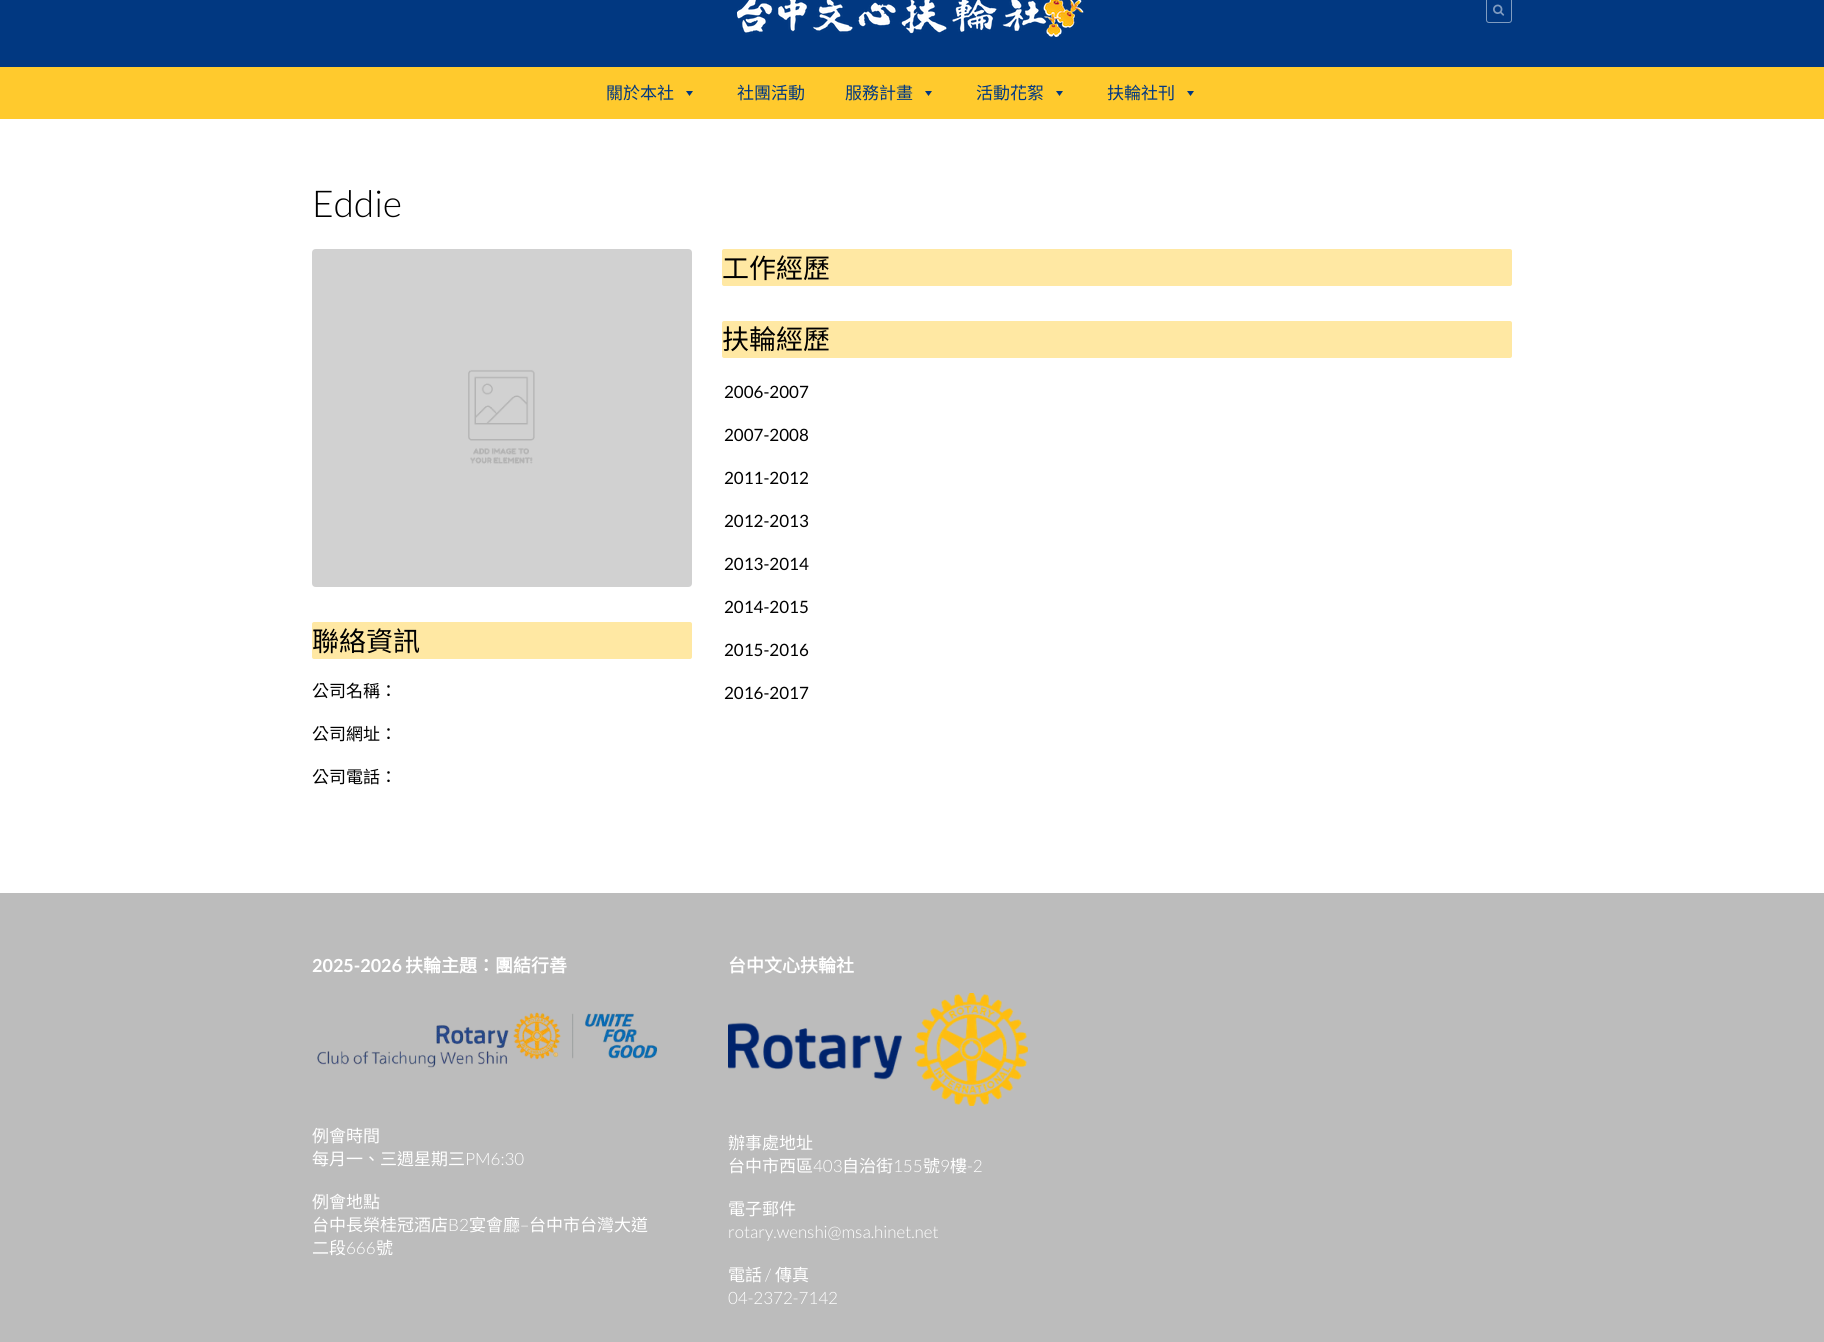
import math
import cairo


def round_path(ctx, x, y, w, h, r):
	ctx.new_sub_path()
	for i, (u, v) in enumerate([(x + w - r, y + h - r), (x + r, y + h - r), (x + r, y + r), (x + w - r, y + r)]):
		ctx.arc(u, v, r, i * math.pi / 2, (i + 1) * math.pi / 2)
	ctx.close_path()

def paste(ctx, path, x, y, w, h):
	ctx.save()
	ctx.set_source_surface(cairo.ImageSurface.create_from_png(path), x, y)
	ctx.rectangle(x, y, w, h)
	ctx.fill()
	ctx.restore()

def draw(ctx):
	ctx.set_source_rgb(1, 1, 1)
	ctx.paint()
	ctx.set_source_rgb(0.004, 0.22, 0.506)
	ctx.rectangle(0, 0, 1824, 67)
	ctx.fill()
	paste(ctx, 'media/1.png', 737, 0, 347, 37)
	round_path(ctx, 1486.5, -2.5, 25, 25, 2.5)
	ctx.set_source_rgb(0.502, 0.612, 0.753)
	ctx.set_line_width(1)
	ctx.stroke()
	paste(ctx, 'media/2.png', 1493, 4, 12, 12)
	ctx.set_source_rgb(1, 0.792, 0.176)
	ctx.rectangle(0, 67, 1824, 52)
	ctx.fill()
	ctx.select_font_face('Noto Sans CJK TC')
	ctx.set_font_size(17)
	ctx.set_source_rgb(0.004, 0.22, 0.506)
	ctx.move_to(606, 99)
	ctx.show_text('關於本社')
	ctx.new_path()
	ctx.move_to(693, 91)
	ctx.line_to(689.5, 96)
	ctx.line_to(686, 91)
	ctx.close_path()
	ctx.fill()
	ctx.move_to(737, 99)
	ctx.show_text('社團活動')
	ctx.move_to(845, 99)
	ctx.show_text('服務計畫')
	ctx.new_path()
	ctx.move_to(932, 91)
	ctx.line_to(928.5, 96)
	ctx.line_to(925, 91)
	ctx.close_path()
	ctx.fill()
	ctx.move_to(976, 99)
	ctx.show_text('活動花絮')
	ctx.new_path()
	ctx.move_to(1063, 91)
	ctx.line_to(1059.5, 96)
	ctx.line_to(1056, 91)
	ctx.close_path()
	ctx.fill()
	ctx.move_to(1107, 99)
	ctx.show_text('扶輪社刊')
	ctx.new_path()
	ctx.move_to(1194, 91)
	ctx.line_to(1190.5, 96)
	ctx.line_to(1187, 91)
	ctx.close_path()
	ctx.fill()
	ctx.select_font_face('Lato Light')
	ctx.set_font_size(37)
	ctx.set_source_rgb(0, 0, 0)
	ctx.move_to(312, 217)
	ctx.show_text('Eddie')
	paste(ctx, 'media/3.png', 312, 249, 380, 338)
	ctx.set_source_rgb(1, 0.91, 0.639)
	round_path(ctx, 312, 622, 380, 37, 2)
	ctx.fill()
	ctx.select_font_face('Noto Sans CJK TC')
	ctx.set_font_size(27)
	ctx.set_source_rgb(0, 0, 0)
	ctx.move_to(312, 651)
	ctx.show_text('聯絡資訊')
	ctx.set_font_size(17)
	for x, y, s in [
		(312, 697, '公司名稱：'),
		(312, 740, '公司網址：'),
		(312, 783, '公司電話：'),
	]:
		ctx.move_to(x, y)
		ctx.show_text(s)
	ctx.set_source_rgb(1, 0.91, 0.639)
	round_path(ctx, 722, 249, 790, 37, 2)
	ctx.fill()
	ctx.set_font_size(27)
	ctx.set_source_rgb(0, 0, 0)
	ctx.move_to(722, 278)
	ctx.show_text('工作經歷')
	ctx.set_source_rgb(1, 0.91, 0.639)
	round_path(ctx, 722, 321, 790, 37, 2)
	ctx.fill()
	ctx.set_source_rgb(0, 0, 0)
	ctx.move_to(722, 349)
	ctx.show_text('扶輪經歷')
	ctx.select_font_face('Lato')
	ctx.set_font_size(17)
	for x, y, s in [
		(724, 398, '2006-2007'),
		(724, 441, '2007-2008'),
		(724, 484, '2011-2012'),
		(724, 527, '2012-2013'),
		(724, 570, '2013-2014'),
		(724, 613, '2014-2015'),
		(724, 656, '2015-2016'),
		(724, 699, '2016-2017'),
	]:
		ctx.move_to(x, y)
		ctx.show_text(s)
	ctx.set_source_rgb(0.737, 0.737, 0.737)
	ctx.rectangle(0, 893, 1824, 449)
	ctx.fill()
	ctx.select_font_face('Lato', cairo.FONT_SLANT_NORMAL, cairo.FONT_WEIGHT_BOLD)
	ctx.set_font_size(18)
	ctx.set_source_rgb(1, 1, 1)
	ctx.move_to(312, 972)
	ctx.show_text('2025-2026')
	ctx.select_font_face('Noto Sans CJK TC', cairo.FONT_SLANT_NORMAL, cairo.FONT_WEIGHT_BOLD)
	ctx.move_to(405, 972)
	ctx.show_text('扶輪主題：團結行善')
	paste(ctx, 'media/4.png', 317, 1012, 341, 56)
	ctx.select_font_face('Noto Sans CJK TC')
	ctx.set_font_size(17)
	ctx.move_to(312, 1142)
	ctx.show_text('例會時間')
	ctx.move_to(312, 1165)
	ctx.show_text('每月一、三週星期三')
	ctx.select_font_face('Lato Light')
	ctx.move_to(465, 1165)
	ctx.show_text('PM6:30')
	ctx.select_font_face('Noto Sans CJK TC')
	ctx.move_to(312, 1208)
	ctx.show_text('例會地點')
	ctx.move_to(312, 1231)
	ctx.show_text('台中長榮桂冠酒店')
	ctx.select_font_face('Lato Light')
	ctx.move_to(448, 1231)
	ctx.show_text('B2')
	ctx.select_font_face('Noto Sans CJK TC')
	ctx.move_to(469, 1231)
	ctx.show_text('宴會廳')
	ctx.select_font_face('Lato Light')
	ctx.move_to(520, 1231)
	ctx.show_text('–')
	ctx.select_font_face('Noto Sans CJK TC')
	ctx.move_to(529, 1231)
	ctx.show_text('台中市台灣大道')
	ctx.move_to(312, 1254)
	ctx.show_text('二段')
	ctx.select_font_face('Lato Light')
	ctx.move_to(346, 1254)
	ctx.show_text('666')
	ctx.select_font_face('Noto Sans CJK TC')
	ctx.move_to(376, 1254)
	ctx.show_text('號')
	ctx.select_font_face('Noto Sans CJK TC', cairo.FONT_SLANT_NORMAL, cairo.FONT_WEIGHT_BOLD)
	ctx.set_font_size(18)
	ctx.move_to(728, 972)
	ctx.show_text('台中文心扶輪社')
	paste(ctx, 'media/5.png', 728, 993, 300, 113)
	ctx.select_font_face('Noto Sans CJK TC')
	ctx.set_font_size(17)
	ctx.move_to(728, 1149)
	ctx.show_text('辦事處地址')
	ctx.move_to(728, 1172)
	ctx.show_text('台中市西區')
	ctx.select_font_face('Lato Light')
	ctx.move_to(813, 1172)
	ctx.show_text('403')
	ctx.select_font_face('Noto Sans CJK TC')
	ctx.move_to(842, 1172)
	ctx.show_text('自治街')
	ctx.select_font_face('Lato Light')
	ctx.move_to(893, 1172)
	ctx.show_text('155')
	ctx.select_font_face('Noto Sans CJK TC')
	ctx.move_to(923, 1172)
	ctx.show_text('號')
	ctx.select_font_face('Lato Light')
	ctx.move_to(940, 1172)
	ctx.show_text('9')
	ctx.select_font_face('Noto Sans CJK TC')
	ctx.move_to(950, 1172)
	ctx.show_text('樓')
	ctx.select_font_face('Lato Light')
	ctx.move_to(967, 1172)
	ctx.show_text('-2')
	ctx.select_font_face('Noto Sans CJK TC')
	ctx.move_to(728, 1215)
	ctx.show_text('電子郵件')
	ctx.select_font_face('Lato Light')
	ctx.move_to(728, 1238)
	ctx.show_text('rotary.wenshi@msa.hinet.net')
	ctx.select_font_face('Noto Sans CJK TC')
	ctx.move_to(728, 1281)
	ctx.show_text('電話')
	ctx.select_font_face('Lato Light')
	ctx.move_to(765, 1281)
	ctx.show_text('/')
	ctx.select_font_face('Noto Sans CJK TC')
	ctx.move_to(775, 1281)
	ctx.show_text('傳真')
	ctx.select_font_face('Lato Light')
	ctx.move_to(728, 1304)
	ctx.show_text('04-2372-7142')


surface = cairo.ImageSurface(cairo.FORMAT_RGB24, 1824, 1342)
ctx = cairo.Context(surface)
options = cairo.FontOptions()
options.set_hint_metrics(cairo.HINT_METRICS_OFF)
options.set_hint_style(cairo.HINT_STYLE_NONE)
ctx.set_font_options(options)
ctx.set_miter_limit(4)
draw(ctx)
surface.write_to_png('image.png')
